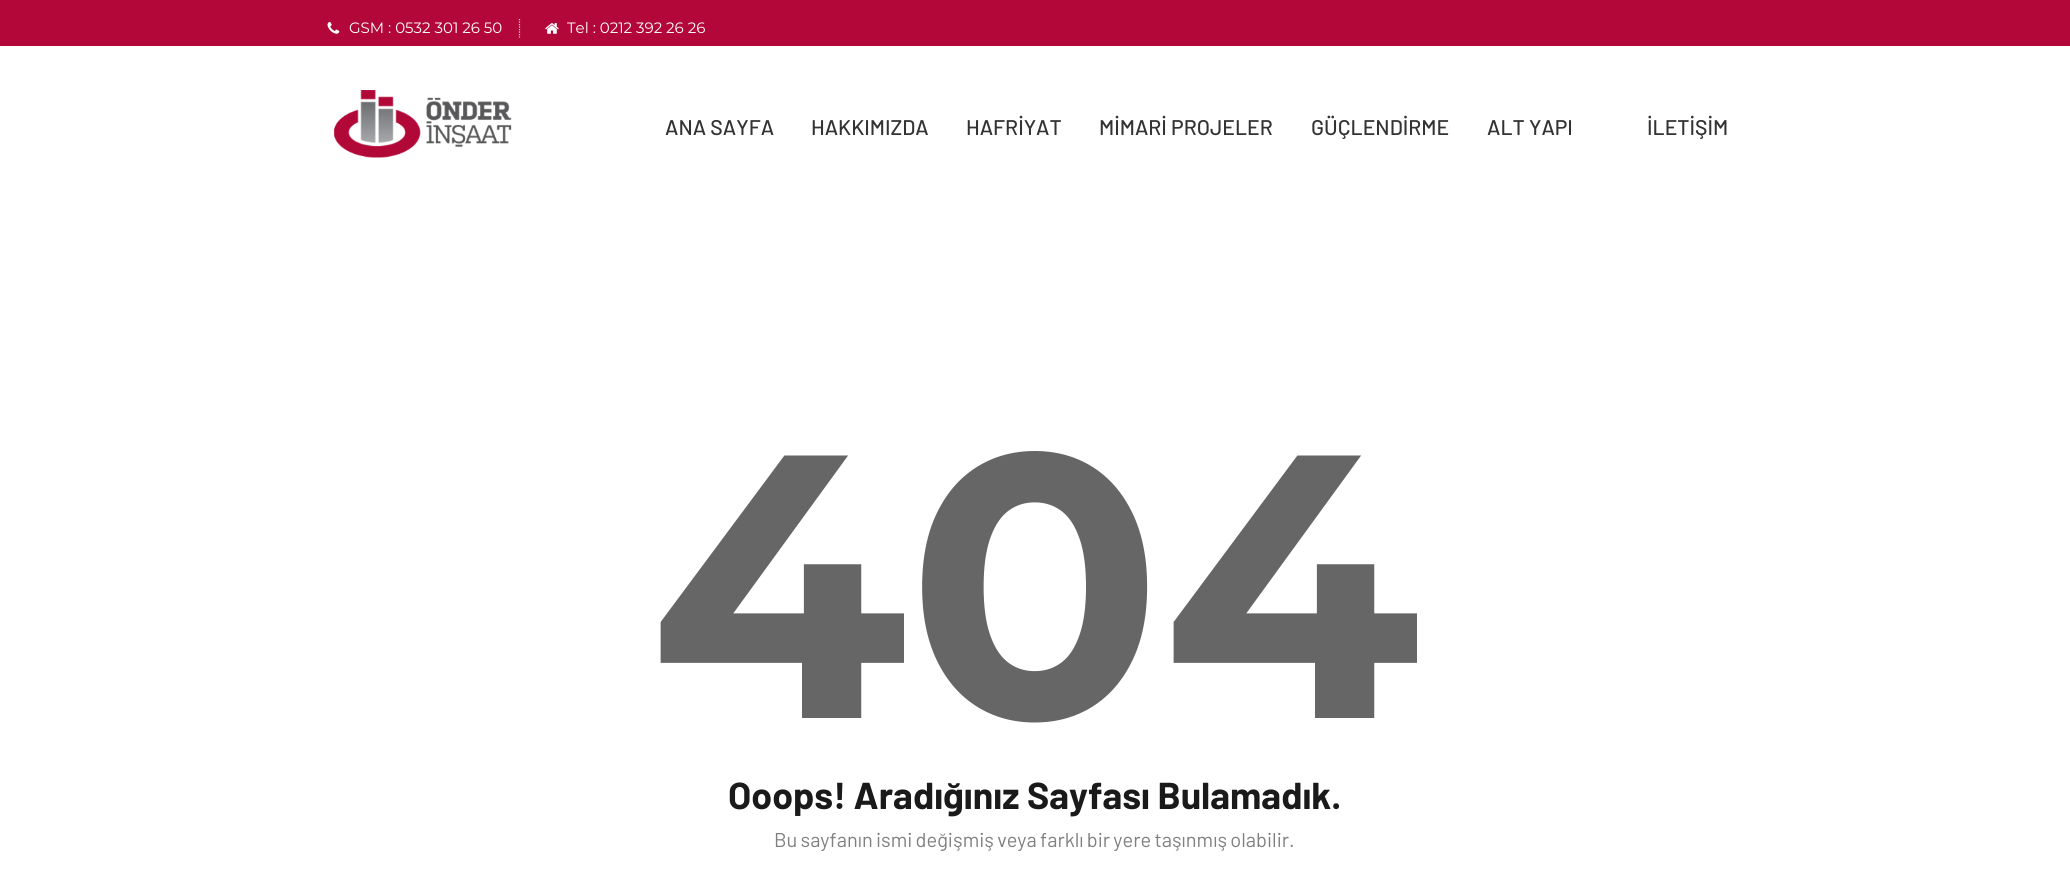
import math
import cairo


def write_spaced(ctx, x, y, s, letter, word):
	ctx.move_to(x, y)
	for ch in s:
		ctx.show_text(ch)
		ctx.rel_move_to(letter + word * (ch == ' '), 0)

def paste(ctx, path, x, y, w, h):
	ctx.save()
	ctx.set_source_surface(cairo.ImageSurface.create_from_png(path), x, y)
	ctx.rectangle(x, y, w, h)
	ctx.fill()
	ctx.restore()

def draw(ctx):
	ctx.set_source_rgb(1, 1, 1)
	ctx.paint()
	ctx.set_source_rgb(0.698, 0.031, 0.22)
	ctx.rectangle(0, 0, 2070, 46)
	ctx.fill()
	paste(ctx, 'media/1.png', 327, 22, 13, 12)
	ctx.select_font_face('Montserrat')
	ctx.set_font_size(15)
	ctx.set_source_rgb(1, 1, 1)
	ctx.move_to(349, 33)
	ctx.show_text('GSM : 0532 301 26 50')
	ctx.new_path()
	ctx.move_to(519.5, 19)
	ctx.line_to(519.5, 37.5)
	ctx.set_source_rgb(0.867, 0.867, 0.867)
	ctx.set_line_width(1.2)
	ctx.set_dash([1.25, 1.25])
	ctx.stroke()
	paste(ctx, 'media/2.png', 545, 23, 14, 11)
	ctx.set_source_rgb(1, 1, 1)
	ctx.move_to(567, 33)
	ctx.show_text('Tel : 0212 392 26 26')
	paste(ctx, 'media/3.png', 334, 90, 178, 68)
	ctx.select_font_face('Barlow Medium')
	ctx.set_font_size(21.25)
	ctx.set_source_rgb(0.2, 0.2, 0.2)
	for x, y, s in [
		(665, 135, 'ANA SAYFA'),
		(811, 135, 'HAKKIMIZDA'),
		(966, 135, 'HAFRİYAT'),
		(1099, 135, 'MİMARİ PROJELER'),
		(1311, 135, 'GÜÇLENDİRME'),
		(1487, 135, 'ALT YAPI'),
		(1647, 135, 'İLETİŞİM'),
	]:
		ctx.move_to(x, y)
		ctx.show_text(s)
	ctx.select_font_face('Montserrat', cairo.FONT_SLANT_NORMAL, cairo.FONT_WEIGHT_BOLD)
	ctx.set_font_size(375)
	ctx.set_source_rgb(0.4, 0.4, 0.4)
	ctx.move_to(649, 718)
	ctx.show_text('404')
	ctx.select_font_face('Barlow', cairo.FONT_SLANT_NORMAL, cairo.FONT_WEIGHT_BOLD)
	ctx.set_font_size(37.5)
	ctx.set_source_rgb(0.102, 0.102, 0.102)
	ctx.move_to(728, 809)
	ctx.show_text('Ooops! Aradığınız Sayfası Bulamadık.')
	ctx.select_font_face('Barlow')
	ctx.set_font_size(20)
	ctx.set_source_rgb(0.502, 0.502, 0.502)
	write_spaced(ctx, 774, 847, 'Bu sayfanın ismi değişmiş veya farklı bir yere taşınmış olabilir.', 0, -0.75)


surface = cairo.ImageSurface(cairo.FORMAT_RGB24, 2070, 877)
ctx = cairo.Context(surface)
options = cairo.FontOptions()
options.set_hint_metrics(cairo.HINT_METRICS_OFF)
options.set_hint_style(cairo.HINT_STYLE_NONE)
ctx.set_font_options(options)
ctx.set_miter_limit(4)
draw(ctx)
surface.write_to_png('image.png')
